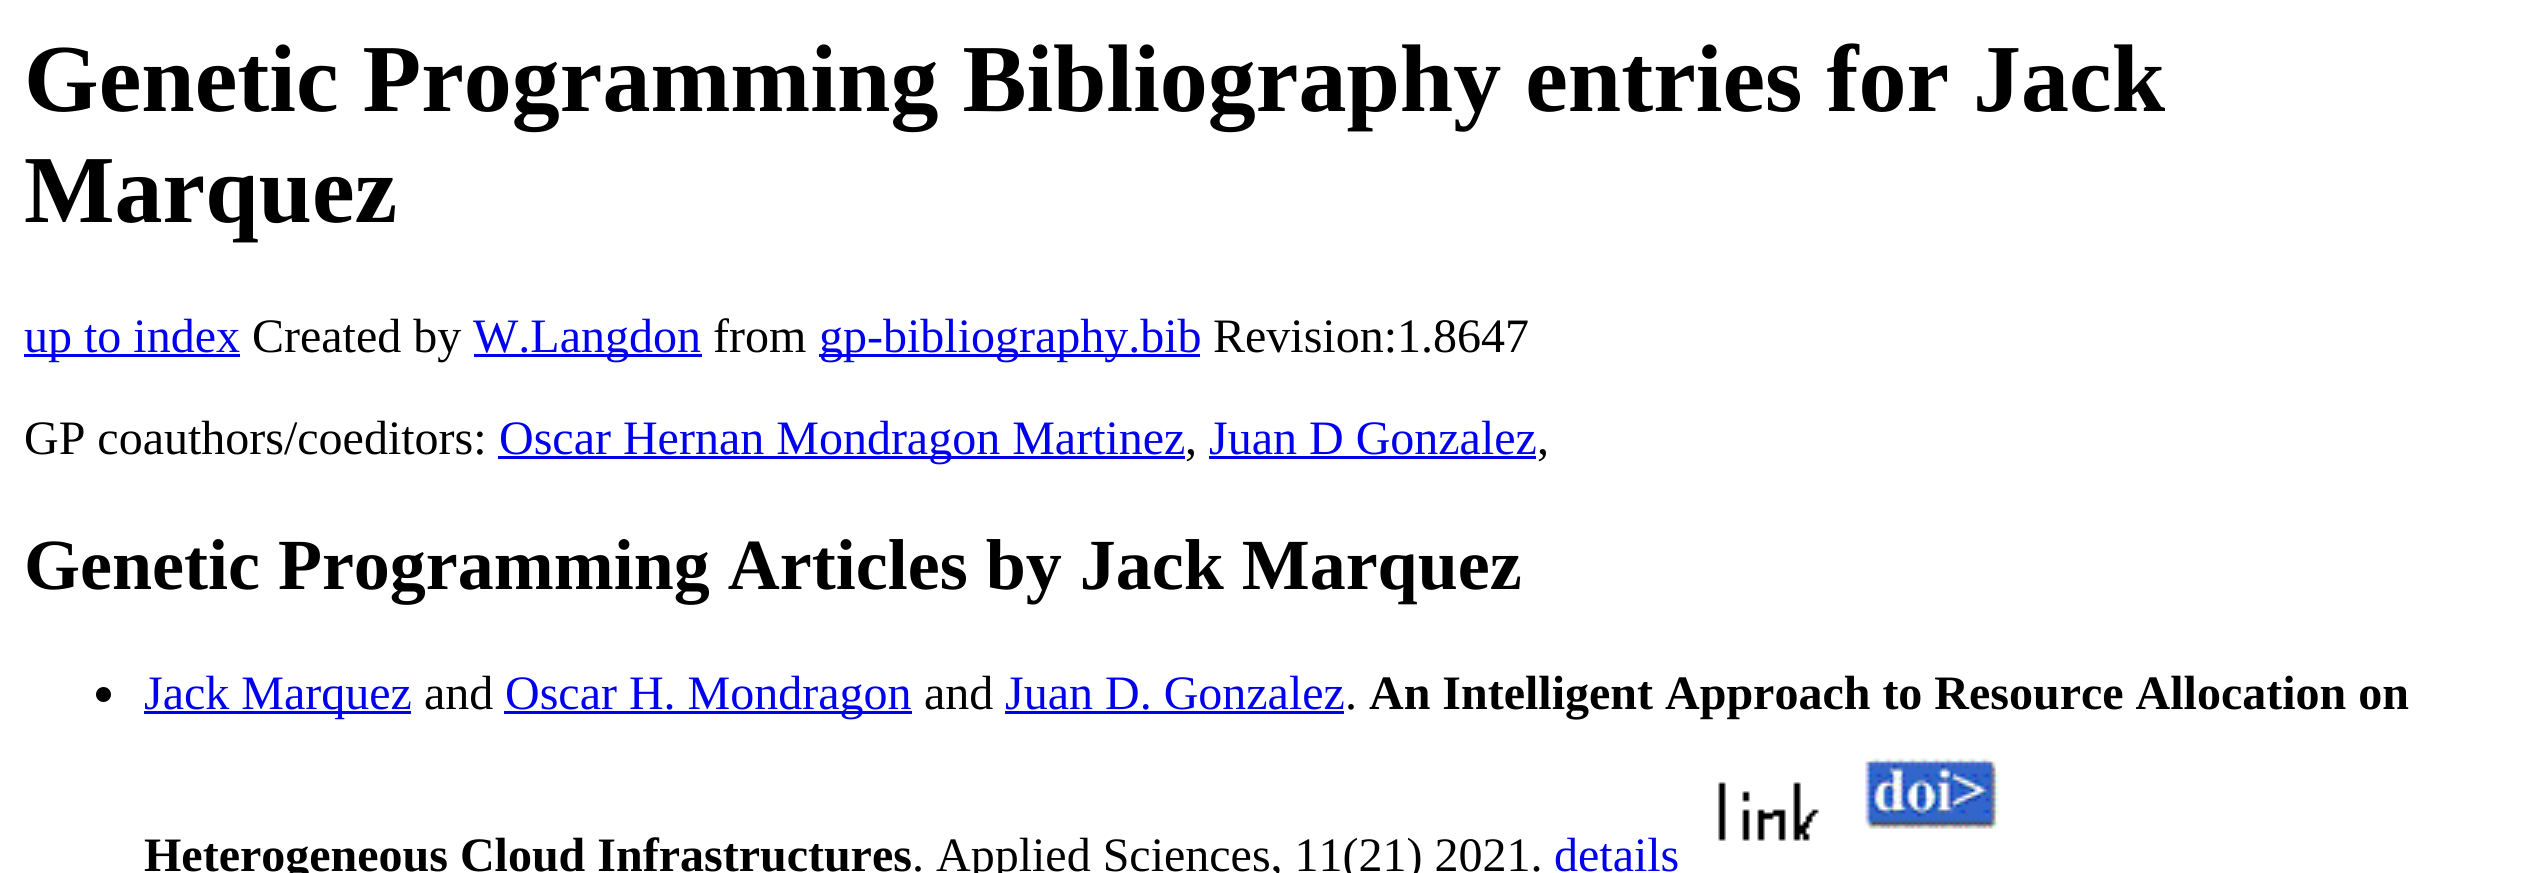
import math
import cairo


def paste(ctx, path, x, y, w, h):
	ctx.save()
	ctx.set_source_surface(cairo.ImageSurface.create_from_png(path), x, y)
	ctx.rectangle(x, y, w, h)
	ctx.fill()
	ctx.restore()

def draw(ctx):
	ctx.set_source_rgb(1, 1, 1)
	ctx.paint()
	ctx.select_font_face('Liberation Serif', cairo.FONT_SLANT_NORMAL, cairo.FONT_WEIGHT_BOLD)
	ctx.set_font_size(96)
	ctx.set_source_rgb(0, 0, 0)
	ctx.move_to(24, 111)
	ctx.show_text('Genetic Programming Bibliography entries for Jack')
	ctx.move_to(24, 222)
	ctx.show_text('Marquez')
	ctx.set_source_rgb(0, 0, 0.933)
	ctx.rectangle(24, 354, 216, 3)
	ctx.fill()
	ctx.select_font_face('Liberation Serif')
	ctx.set_font_size(48)
	ctx.move_to(24, 352)
	ctx.show_text('up to index')
	ctx.set_source_rgb(0, 0, 0)
	ctx.move_to(252, 352)
	ctx.show_text('Created by')
	ctx.set_source_rgb(0, 0, 0.933)
	ctx.rectangle(474, 354, 228, 3)
	ctx.fill()
	ctx.move_to(473, 352)
	ctx.show_text('W.Langdon')
	ctx.set_source_rgb(0, 0, 0)
	ctx.move_to(713, 352)
	ctx.show_text('from')
	ctx.set_source_rgb(0, 0, 0.933)
	ctx.rectangle(819, 354, 381, 3)
	ctx.fill()
	ctx.move_to(819, 352)
	ctx.show_text('gp-bibliography.bib')
	ctx.set_source_rgb(0, 0, 0)
	ctx.move_to(1213, 352)
	ctx.show_text('Revision:1.8647')
	ctx.move_to(24, 454)
	ctx.show_text('GP coauthors/coeditors:')
	ctx.set_source_rgb(0, 0, 0.933)
	ctx.rectangle(498, 456, 687, 3)
	ctx.fill()
	ctx.move_to(499, 454)
	ctx.show_text('Oscar Hernan Mondragon Martinez')
	ctx.set_source_rgb(0, 0, 0)
	ctx.move_to(1185, 454)
	ctx.show_text(',')
	ctx.set_source_rgb(0, 0, 0.933)
	ctx.move_to(1209, 454)
	ctx.show_text('Juan D Gonzalez')
	ctx.rectangle(1209, 456, 327, 3)
	ctx.fill()
	ctx.set_source_rgb(0, 0, 0)
	ctx.move_to(1537, 454)
	ctx.show_text(',')
	ctx.select_font_face('Liberation Serif', cairo.FONT_SLANT_NORMAL, cairo.FONT_WEIGHT_BOLD)
	ctx.set_font_size(72)
	ctx.move_to(24, 589)
	ctx.show_text('Genetic Programming Articles by Jack Marquez')
	ctx.new_path()
	ctx.arc(103.5, 694.5, 7.5, 0, 2 * math.pi)
	ctx.fill()
	ctx.set_source_rgb(0, 0, 0.933)
	ctx.rectangle(144, 711, 267, 3)
	ctx.fill()
	ctx.select_font_face('Liberation Serif')
	ctx.set_font_size(48)
	ctx.move_to(144, 709)
	ctx.show_text('Jack Marquez')
	ctx.set_source_rgb(0, 0, 0)
	ctx.move_to(424, 709)
	ctx.show_text('and')
	ctx.set_source_rgb(0, 0, 0.933)
	ctx.rectangle(504, 711, 408, 3)
	ctx.fill()
	ctx.move_to(505, 709)
	ctx.show_text('Oscar H. Mondragon')
	ctx.set_source_rgb(0, 0, 0)
	ctx.move_to(924, 709)
	ctx.show_text('and')
	ctx.set_source_rgb(0, 0, 0.933)
	ctx.move_to(1005, 709)
	ctx.show_text('Juan D. Gonzalez')
	ctx.rectangle(1005, 711, 339, 3)
	ctx.fill()
	ctx.select_font_face('Liberation Serif', cairo.FONT_SLANT_NORMAL, cairo.FONT_WEIGHT_BOLD)
	ctx.set_source_rgb(0, 0, 0)
	ctx.move_to(1369, 709)
	ctx.show_text('An Intelligent Approach to Resource Allocation on')
	ctx.select_font_face('Liberation Serif')
	ctx.move_to(1345, 709)
	ctx.show_text('.')
	paste(ctx, 'media/1.png', 1718, 782, 101, 59)
	paste(ctx, 'media/2.png', 1865, 758, 134, 71)
	ctx.select_font_face('Liberation Serif', cairo.FONT_SLANT_NORMAL, cairo.FONT_WEIGHT_BOLD)
	ctx.move_to(144, 871)
	ctx.show_text('Heterogeneous Cloud Infrastructures')
	ctx.select_font_face('Liberation Serif')
	ctx.move_to(912, 871)
	ctx.show_text('. Applied Sciences, 11(21) 2021.')
	ctx.set_source_rgb(0, 0, 0.933)
	ctx.move_to(1554, 871)
	ctx.show_text('details')


surface = cairo.ImageSurface(cairo.FORMAT_RGB24, 2539, 873)
ctx = cairo.Context(surface)
options = cairo.FontOptions()
options.set_hint_metrics(cairo.HINT_METRICS_OFF)
options.set_hint_style(cairo.HINT_STYLE_NONE)
ctx.set_font_options(options)
ctx.set_miter_limit(4)
draw(ctx)
surface.write_to_png('image.png')
